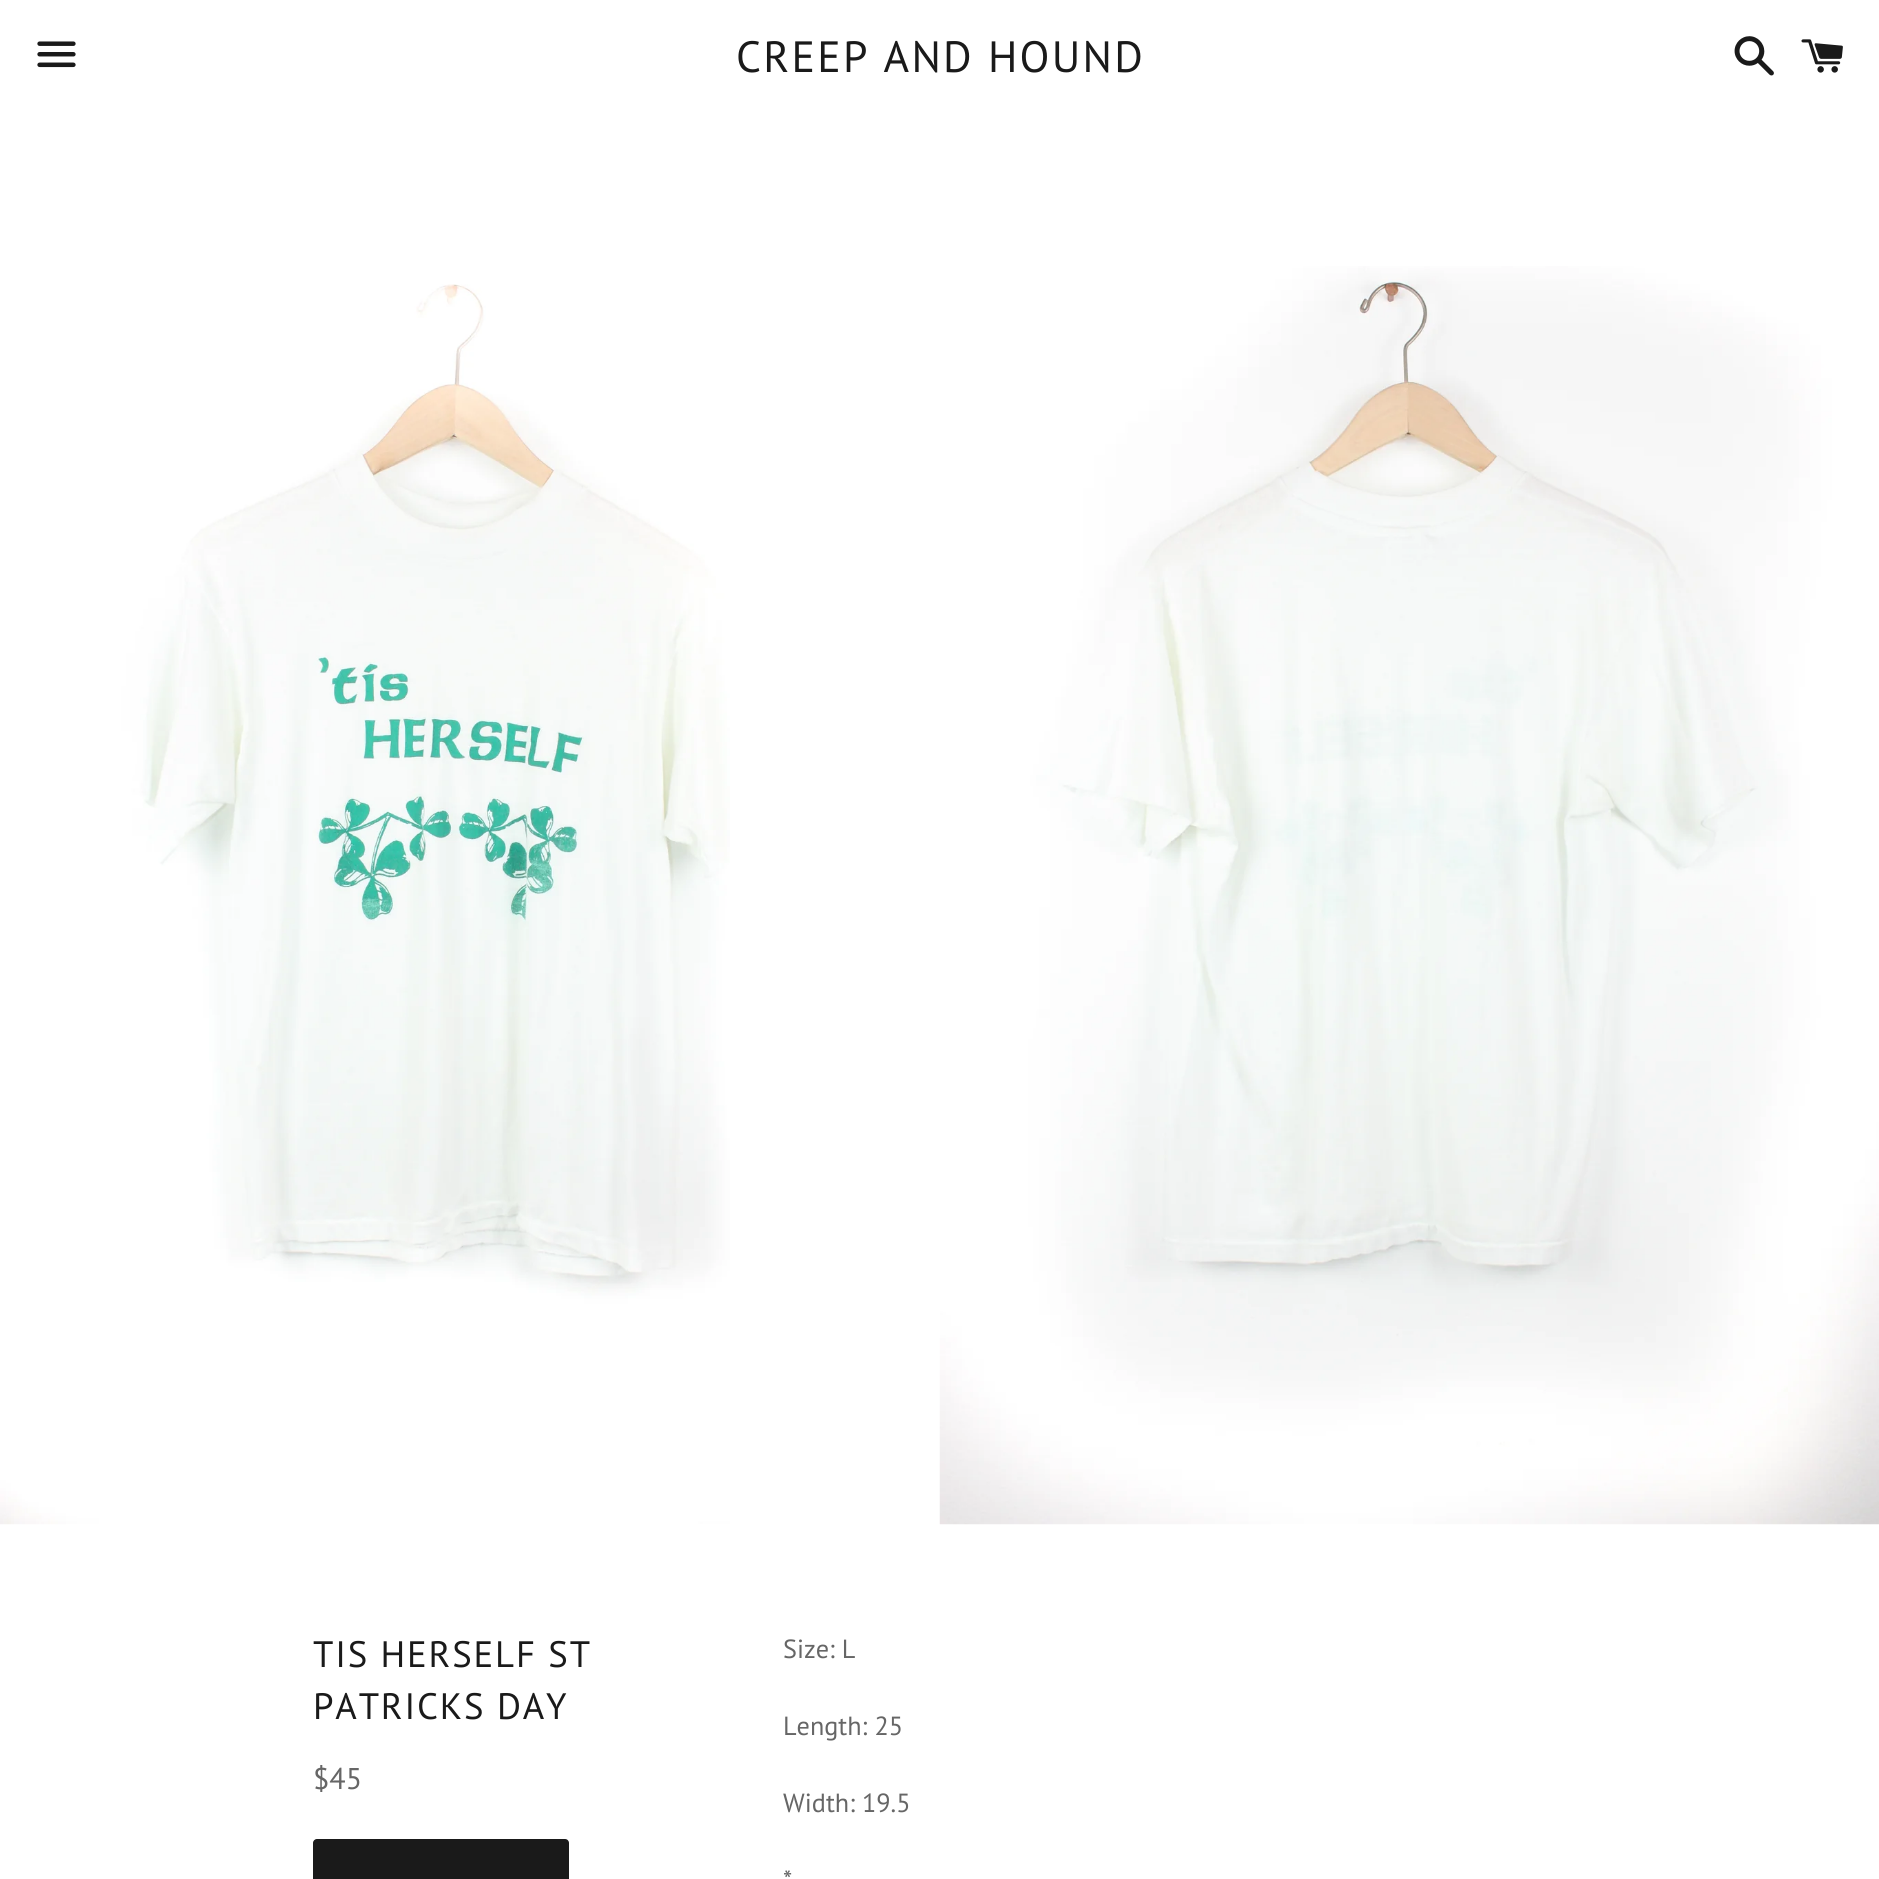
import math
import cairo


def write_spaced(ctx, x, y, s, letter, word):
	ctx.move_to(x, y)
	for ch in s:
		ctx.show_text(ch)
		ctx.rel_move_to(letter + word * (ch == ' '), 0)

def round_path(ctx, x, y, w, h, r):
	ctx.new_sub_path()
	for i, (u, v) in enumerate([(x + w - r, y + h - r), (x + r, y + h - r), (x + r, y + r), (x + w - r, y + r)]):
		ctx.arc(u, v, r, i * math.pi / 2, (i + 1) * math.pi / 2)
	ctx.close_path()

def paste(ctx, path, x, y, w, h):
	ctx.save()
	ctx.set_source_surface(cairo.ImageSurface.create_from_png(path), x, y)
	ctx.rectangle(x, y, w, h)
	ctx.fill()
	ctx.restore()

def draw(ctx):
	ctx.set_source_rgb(1, 1, 1)
	ctx.paint()
	paste(ctx, 'media/1.png', 37, 41, 39, 27)
	ctx.select_font_face('PT Sans')
	ctx.set_font_size(43.75)
	ctx.set_source_rgb(0.102, 0.102, 0.102)
	write_spaced(ctx, 736, 72, 'CREEP AND HOUND', 2.25, 0)
	paste(ctx, 'media/2.png', 1734, 36, 40, 40)
	paste(ctx, 'media/3.png', 1801, 39, 42, 34)
	paste(ctx, 'media/4.png', 0, 284, 730, 1241)
	paste(ctx, 'media/5.png', 939, 266, 940, 1259)
	ctx.set_font_size(36.75)
	write_spaced(ctx, 313, 1667, 'TIS HERSELF ST', 1.8, 0)
	write_spaced(ctx, 313, 1719, 'PATRICKS DAY', 1.8, 0)
	ctx.set_font_size(30)
	ctx.set_source_rgb(0.4, 0.4, 0.4)
	ctx.move_to(313, 1789)
	ctx.show_text('$45')
	ctx.set_source_rgb(0.102, 0.102, 0.102)
	round_path(ctx, 313, 1839, 256, 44, 4)
	ctx.fill()
	ctx.set_font_size(26.25)
	ctx.set_source_rgb(0.4, 0.4, 0.4)
	for x, y, s in [
		(783, 1658, 'Size: L'),
		(783, 1735, 'Length: 25'),
		(783, 1812, 'Width: 19.5'),
		(783, 1889, '*'),
	]:
		ctx.move_to(x, y)
		ctx.show_text(s)


surface = cairo.ImageSurface(cairo.FORMAT_RGB24, 1879, 1879)
ctx = cairo.Context(surface)
options = cairo.FontOptions()
options.set_hint_metrics(cairo.HINT_METRICS_OFF)
options.set_hint_style(cairo.HINT_STYLE_NONE)
ctx.set_font_options(options)
ctx.set_miter_limit(4)
draw(ctx)
surface.write_to_png('image.png')
